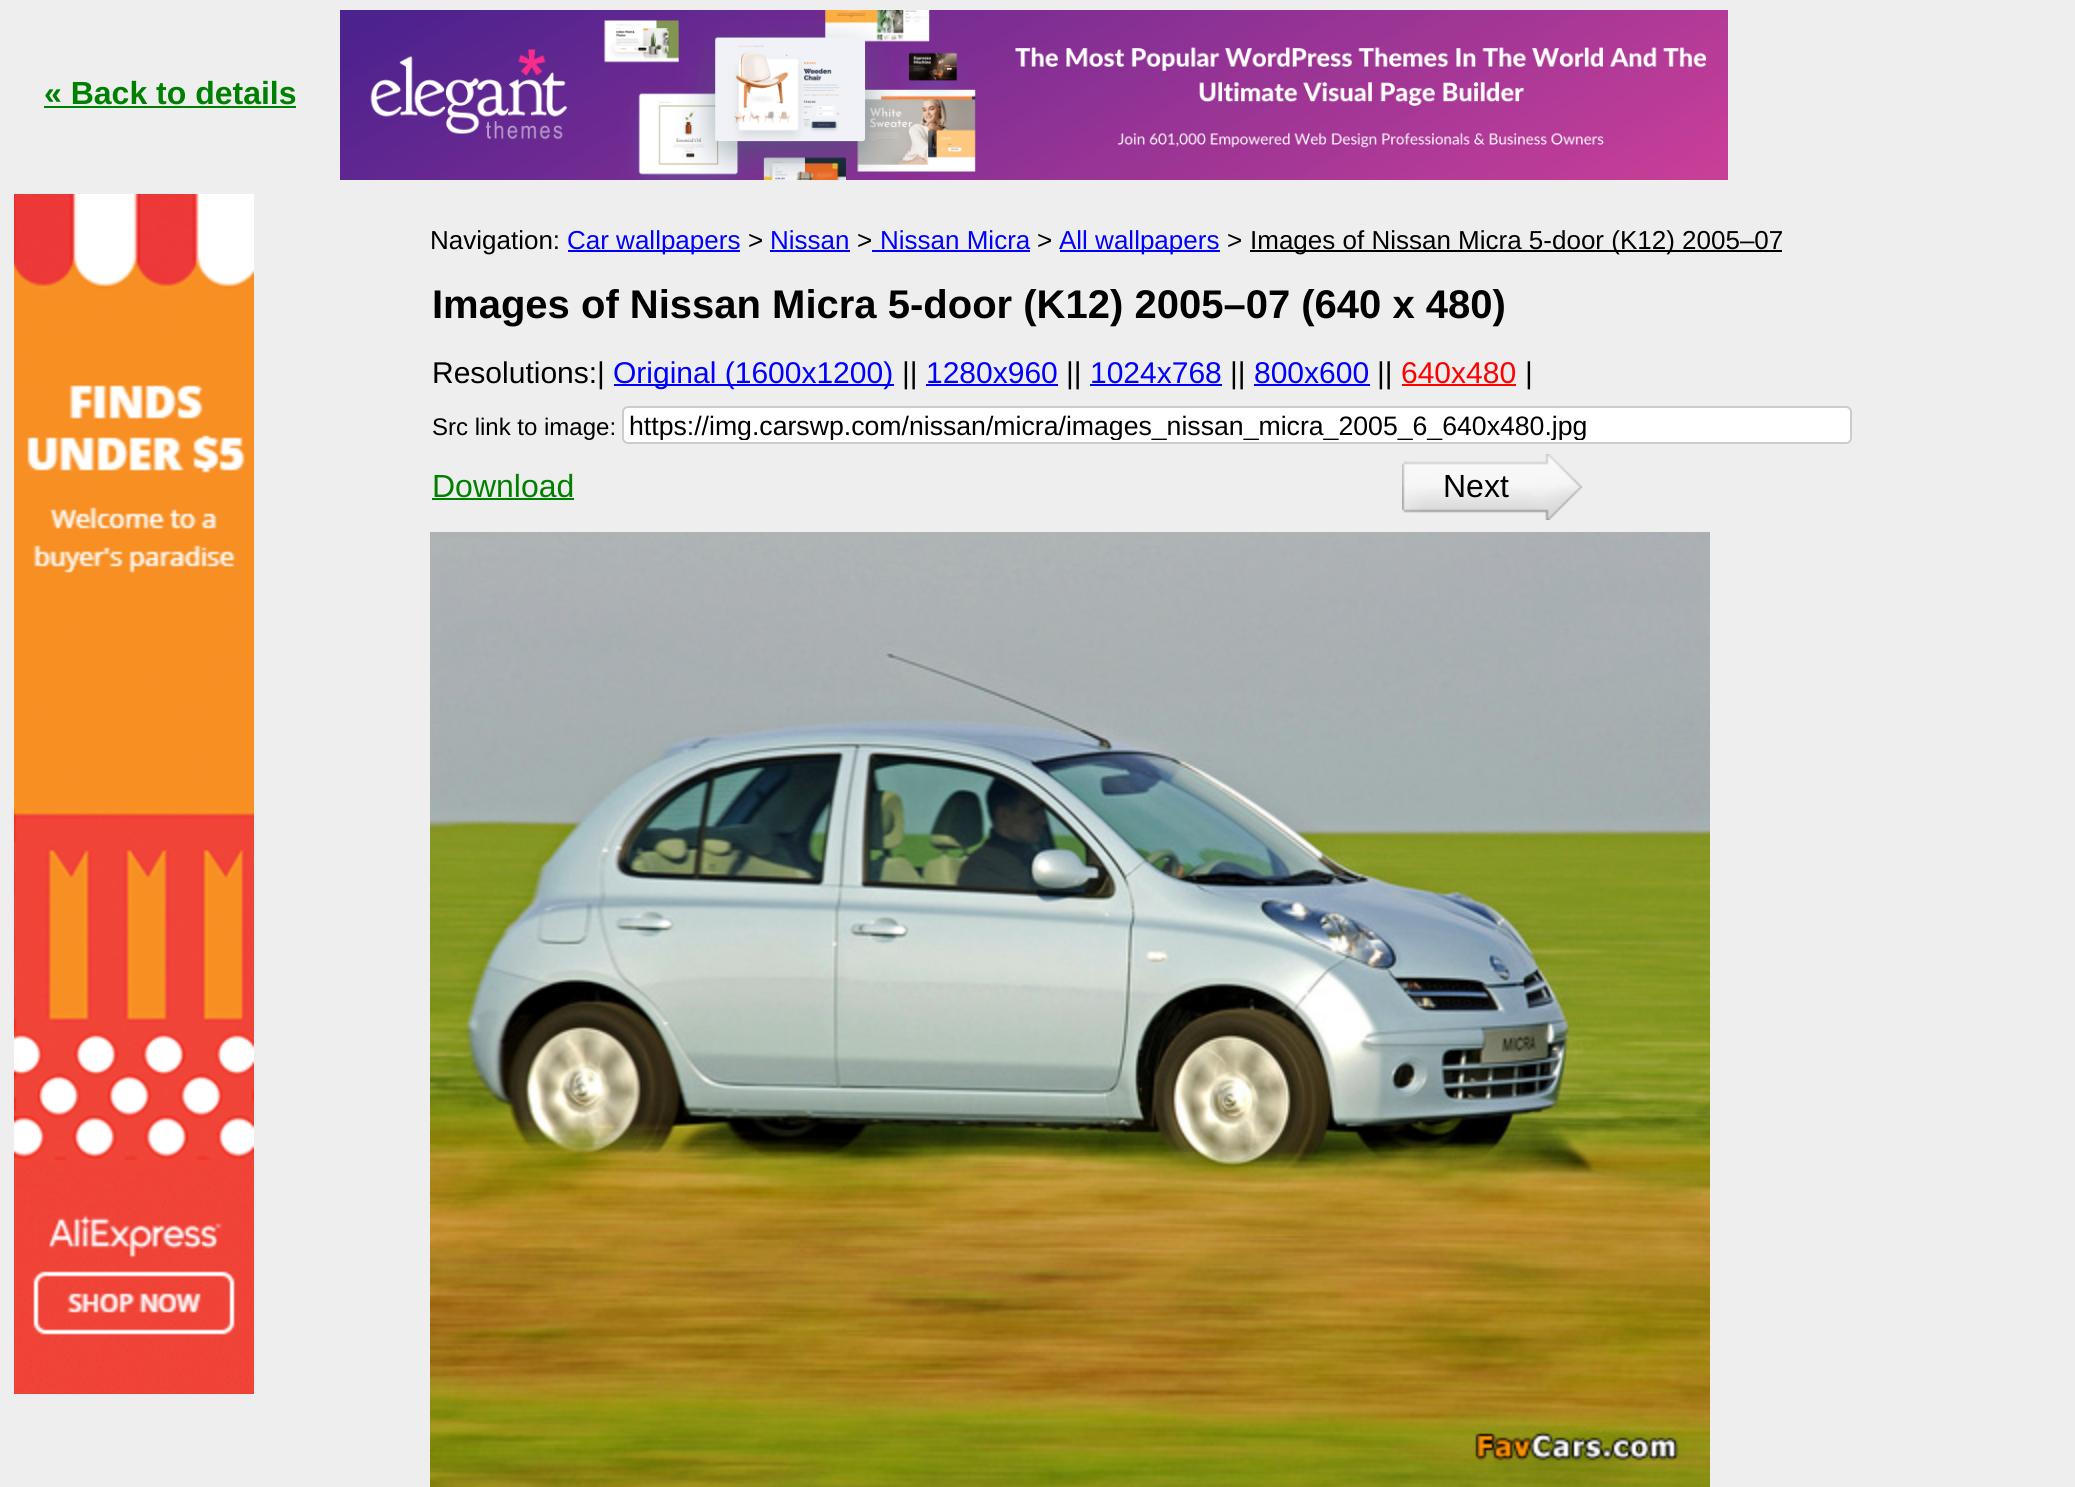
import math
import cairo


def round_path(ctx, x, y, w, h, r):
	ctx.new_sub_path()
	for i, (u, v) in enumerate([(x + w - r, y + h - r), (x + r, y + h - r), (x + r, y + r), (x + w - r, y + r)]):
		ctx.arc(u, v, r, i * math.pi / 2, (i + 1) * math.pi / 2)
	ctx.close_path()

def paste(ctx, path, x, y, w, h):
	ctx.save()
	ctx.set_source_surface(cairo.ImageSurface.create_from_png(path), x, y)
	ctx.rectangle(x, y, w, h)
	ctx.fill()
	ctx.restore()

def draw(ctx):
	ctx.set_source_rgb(0.933, 0.933, 0.933)
	ctx.paint()
	paste(ctx, 'media/1.png', 340, 10, 1388, 170)
	ctx.select_font_face('Liberation Sans', cairo.FONT_SLANT_NORMAL, cairo.FONT_WEIGHT_BOLD)
	ctx.set_font_size(32)
	ctx.set_source_rgb(0, 0.502, 0)
	ctx.move_to(44, 104)
	ctx.show_text('« Back to details')
	ctx.rectangle(44, 106, 252, 2)
	ctx.fill()
	paste(ctx, 'media/2.png', 14, 194, 240, 1200)
	ctx.select_font_face('Liberation Sans')
	ctx.set_font_size(26)
	ctx.set_source_rgb(0, 0, 0)
	ctx.move_to(430, 249)
	ctx.show_text('Navigation:')
	ctx.set_source_rgb(0, 0, 1)
	ctx.rectangle(568, 250, 172, 2)
	ctx.fill()
	ctx.move_to(567, 249)
	ctx.show_text('Car wallpapers')
	ctx.set_source_rgb(0, 0, 0)
	ctx.move_to(748, 249)
	ctx.show_text('>')
	ctx.set_source_rgb(0, 0, 1)
	ctx.move_to(770, 249)
	ctx.show_text('Nissan')
	ctx.rectangle(770, 250, 80, 2)
	ctx.fill()
	ctx.set_source_rgb(0, 0, 0)
	ctx.move_to(857, 249)
	ctx.show_text('>')
	ctx.set_source_rgb(0, 0, 1)
	ctx.move_to(880, 249)
	ctx.show_text('Nissan Micra')
	ctx.rectangle(872, 250, 158, 2)
	ctx.fill()
	ctx.set_source_rgb(0, 0, 0)
	ctx.move_to(1037, 249)
	ctx.show_text('>')
	ctx.set_source_rgb(0, 0, 1)
	ctx.rectangle(1060, 250, 160, 2)
	ctx.fill()
	ctx.move_to(1059, 249)
	ctx.show_text('All wallpapers')
	ctx.set_source_rgb(0, 0, 0)
	ctx.move_to(1227, 249)
	ctx.show_text('>')
	ctx.rectangle(1250, 250, 532, 2)
	ctx.fill()
	ctx.move_to(1250, 249)
	ctx.show_text('Images of Nissan Micra 5-door (K12) 2005–07')
	ctx.select_font_face('Liberation Sans', cairo.FONT_SLANT_NORMAL, cairo.FONT_WEIGHT_BOLD)
	ctx.set_font_size(40)
	ctx.move_to(432, 318)
	ctx.show_text('Images of Nissan Micra 5-door (K12) 2005–07 (640 x 480)')
	ctx.select_font_face('Liberation Sans')
	ctx.set_font_size(30)
	ctx.move_to(432, 383)
	ctx.show_text('Resolutions:|')
	ctx.set_source_rgb(0, 0, 1)
	ctx.rectangle(614, 384, 280, 2)
	ctx.fill()
	ctx.move_to(613, 383)
	ctx.show_text('Original (1600x1200)')
	ctx.set_source_rgb(0, 0, 0)
	ctx.move_to(902, 383)
	ctx.show_text('||')
	ctx.set_source_rgb(0, 0, 1)
	ctx.move_to(926, 383)
	ctx.show_text('1280x960')
	ctx.rectangle(926, 384, 132, 2)
	ctx.fill()
	ctx.set_source_rgb(0, 0, 0)
	ctx.move_to(1066, 383)
	ctx.show_text('||')
	ctx.set_source_rgb(0, 0, 1)
	ctx.move_to(1090, 383)
	ctx.show_text('1024x768')
	ctx.rectangle(1090, 384, 132, 2)
	ctx.fill()
	ctx.set_source_rgb(0, 0, 0)
	ctx.move_to(1230, 383)
	ctx.show_text('||')
	ctx.set_source_rgb(0, 0, 1)
	ctx.move_to(1254, 383)
	ctx.show_text('800x600')
	ctx.rectangle(1254, 384, 116, 2)
	ctx.fill()
	ctx.set_source_rgb(0, 0, 0)
	ctx.move_to(1377, 383)
	ctx.show_text('||')
	ctx.set_source_rgb(1, 0, 0)
	ctx.move_to(1401, 383)
	ctx.show_text('640x480')
	ctx.rectangle(1402, 384, 114, 2)
	ctx.fill()
	ctx.set_source_rgb(0, 0, 0)
	ctx.move_to(1525, 383)
	ctx.show_text('|')
	ctx.set_font_size(24)
	ctx.move_to(432, 435)
	ctx.show_text('Src link to image:')
	ctx.set_source_rgb(1, 1, 1)
	round_path(ctx, 623, 407, 1228, 36, 5)
	ctx.fill_preserve()
	ctx.set_source_rgb(0.8, 0.8, 0.8)
	ctx.stroke()
	ctx.save()
	ctx.rectangle(628, 410, 1218, 30)
	ctx.clip()
	ctx.set_font_size(26.65)
	ctx.set_source_rgb(0, 0, 0)
	ctx.move_to(629, 435)
	ctx.show_text('https://img.carswp.com/nissan/micra/images_nissan_micra_2005_6_640x480.jpg')
	ctx.restore()
	ctx.set_font_size(32)
	ctx.set_source_rgb(0, 0.502, 0)
	ctx.move_to(432, 497)
	ctx.show_text('Download')
	ctx.rectangle(432, 498, 142, 2)
	ctx.fill()
	paste(ctx, 'media/3.png', 1402, 454, 180, 66)
	ctx.set_source_rgb(0, 0, 0)
	ctx.move_to(1443, 497)
	ctx.show_text('Next')
	paste(ctx, 'media/4.png', 430, 532, 1280, 955)


surface = cairo.ImageSurface(cairo.FORMAT_RGB24, 2075, 1487)
ctx = cairo.Context(surface)
options = cairo.FontOptions()
options.set_hint_metrics(cairo.HINT_METRICS_OFF)
options.set_hint_style(cairo.HINT_STYLE_NONE)
ctx.set_font_options(options)
ctx.set_miter_limit(4)
draw(ctx)
surface.write_to_png('image.png')
